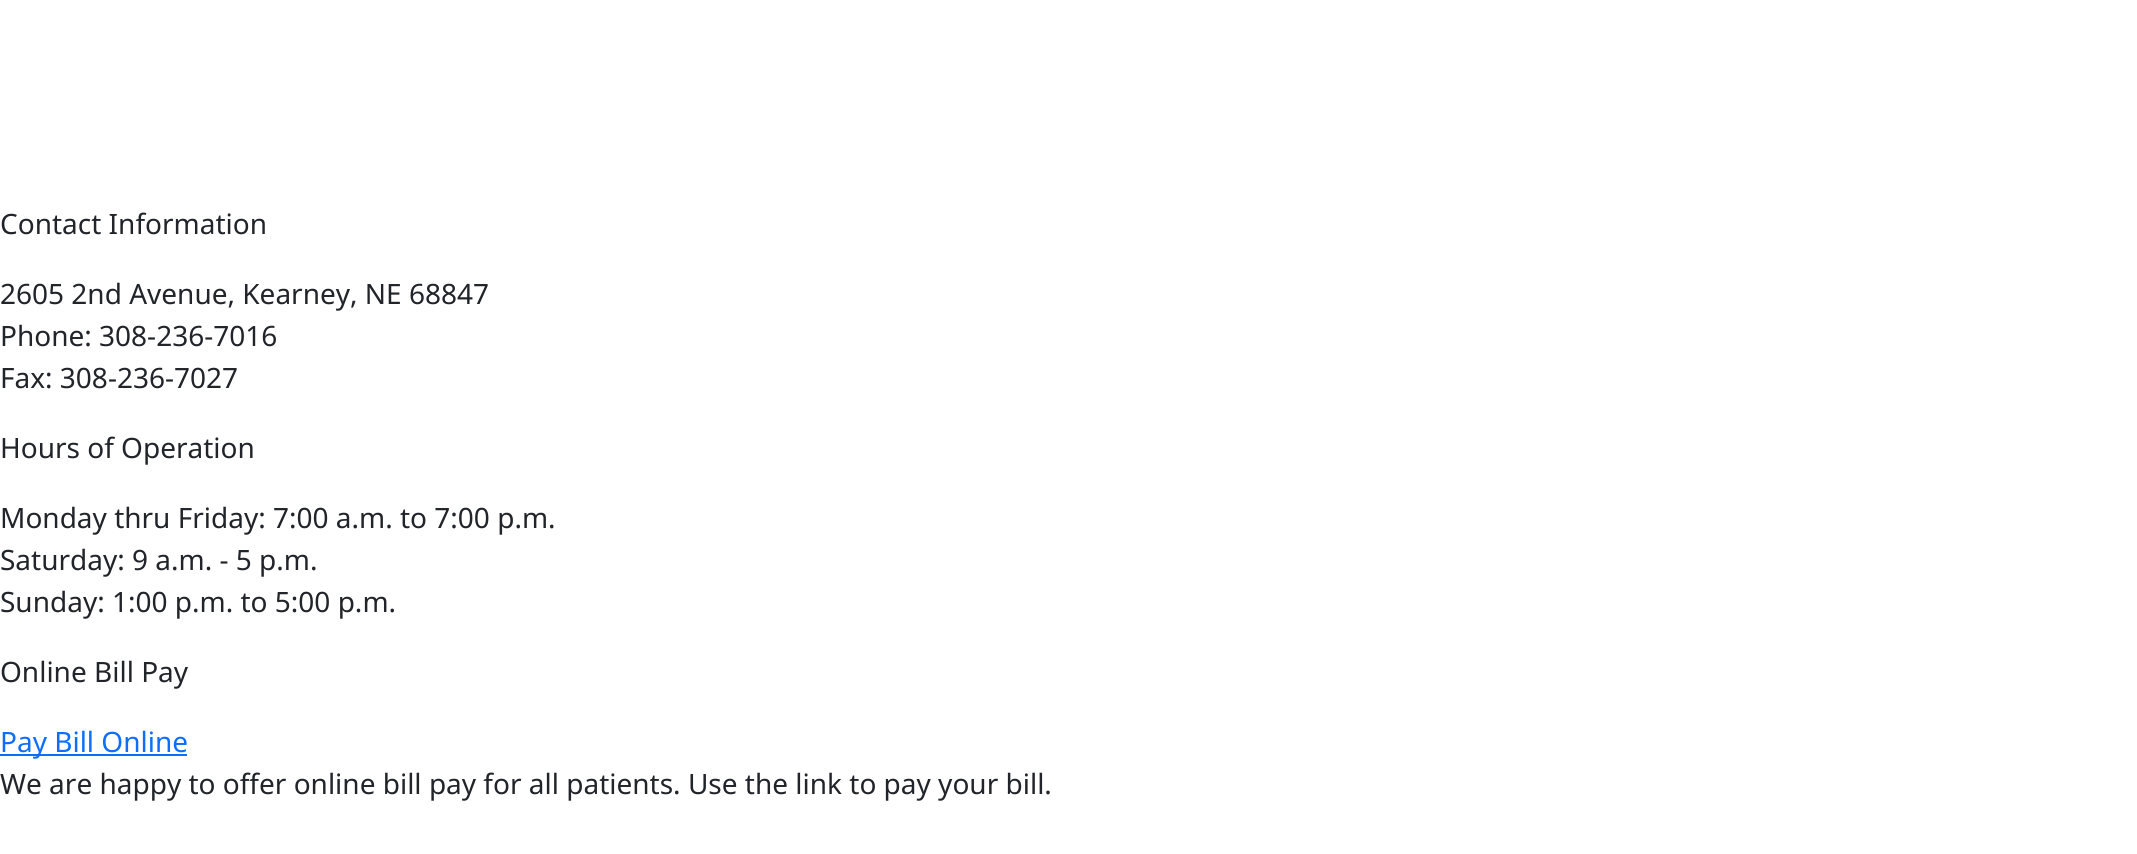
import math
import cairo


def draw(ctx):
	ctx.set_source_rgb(1, 1, 1)
	ctx.paint()
	ctx.select_font_face('Noto Sans')
	ctx.set_font_size(28)
	ctx.set_source_rgb(0.129, 0.145, 0.161)
	for x, y, s in [
		(0, 234, 'Contact Information'),
		(0, 304, '2605 2nd Avenue, Kearney, NE 68847'),
		(0, 346, 'Phone: 308-236-7016'),
		(0, 388, 'Fax: 308-236-7027'),
		(0, 458, 'Hours of Operation'),
		(0, 528, 'Monday thru Friday: 7:00 a.m. to 7:00 p.m.'),
		(0, 570, 'Saturday: 9 a.m. - 5 p.m.'),
		(0, 612, 'Sunday: 1:00 p.m. to 5:00 p.m.'),
		(0, 682, 'Online Bill Pay'),
	]:
		ctx.move_to(x, y)
		ctx.show_text(s)
	ctx.set_source_rgb(0.051, 0.431, 0.992)
	ctx.rectangle(0, 754, 187, 2)
	ctx.fill()
	ctx.move_to(0, 752)
	ctx.show_text('Pay Bill Online')
	ctx.set_source_rgb(0.129, 0.145, 0.161)
	ctx.move_to(0, 794)
	ctx.show_text('We are happy to offer online bill pay for all patients. Use the link to pay your bill.')


surface = cairo.ImageSurface(cairo.FORMAT_RGB24, 2137, 854)
ctx = cairo.Context(surface)
options = cairo.FontOptions()
options.set_hint_metrics(cairo.HINT_METRICS_OFF)
options.set_hint_style(cairo.HINT_STYLE_NONE)
ctx.set_font_options(options)
ctx.set_miter_limit(4)
draw(ctx)
surface.write_to_png('image.png')
